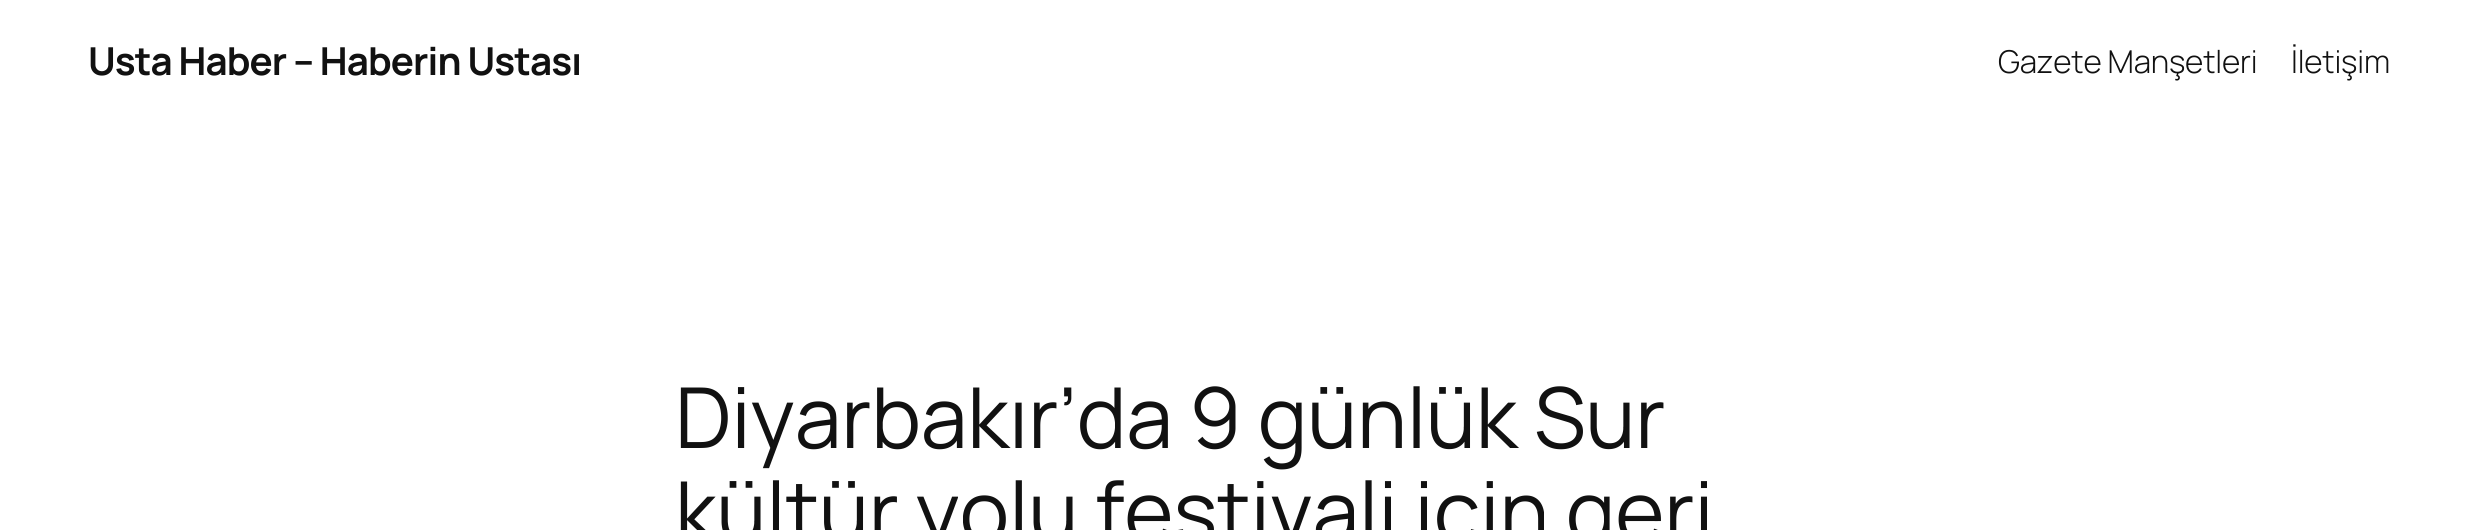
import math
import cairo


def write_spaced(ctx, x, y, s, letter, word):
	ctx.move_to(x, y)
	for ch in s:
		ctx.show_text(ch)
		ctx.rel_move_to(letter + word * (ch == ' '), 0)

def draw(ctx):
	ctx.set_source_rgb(1, 1, 1)
	ctx.paint()
	ctx.select_font_face('Manrope', cairo.FONT_SLANT_NORMAL, cairo.FONT_WEIGHT_BOLD)
	ctx.set_font_size(38.5)
	ctx.set_source_rgb(0.067, 0.067, 0.067)
	write_spaced(ctx, 88, 75, 'Usta Haber – Haberin Ustası', -0.9, 0)
	ctx.select_font_face('Manrope Light')
	ctx.set_font_size(31.5)
	write_spaced(ctx, 1998, 73, 'Gazete Manşetleri', -0.2, 0)
	write_spaced(ctx, 2291, 73, 'İletişim', -0.2, 0)
	ctx.select_font_face('Manrope')
	ctx.set_font_size(84)
	write_spaced(ctx, 675, 448, 'Diyarbakır’da 9 günlük Sur', -0.2, 0)
	write_spaced(ctx, 675, 542, 'kültür yolu festivali için geri', -0.2, 0)


surface = cairo.ImageSurface(cairo.FORMAT_RGB24, 2478, 530)
ctx = cairo.Context(surface)
options = cairo.FontOptions()
options.set_hint_metrics(cairo.HINT_METRICS_OFF)
options.set_hint_style(cairo.HINT_STYLE_NONE)
ctx.set_font_options(options)
ctx.set_miter_limit(4)
draw(ctx)
surface.write_to_png('image.png')
